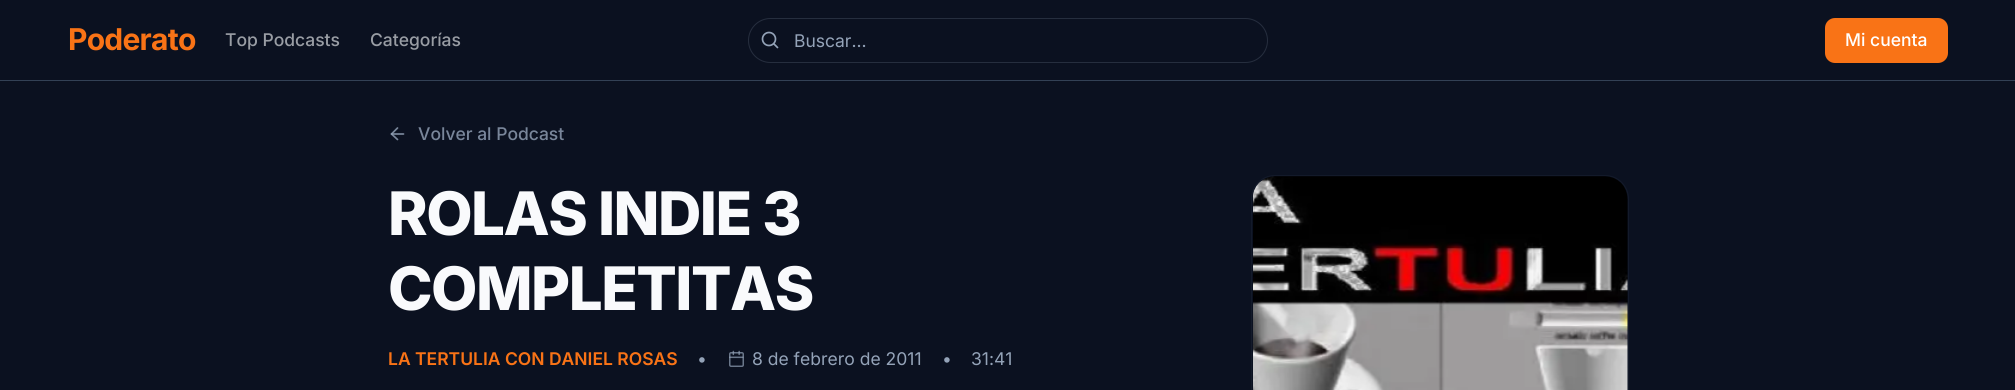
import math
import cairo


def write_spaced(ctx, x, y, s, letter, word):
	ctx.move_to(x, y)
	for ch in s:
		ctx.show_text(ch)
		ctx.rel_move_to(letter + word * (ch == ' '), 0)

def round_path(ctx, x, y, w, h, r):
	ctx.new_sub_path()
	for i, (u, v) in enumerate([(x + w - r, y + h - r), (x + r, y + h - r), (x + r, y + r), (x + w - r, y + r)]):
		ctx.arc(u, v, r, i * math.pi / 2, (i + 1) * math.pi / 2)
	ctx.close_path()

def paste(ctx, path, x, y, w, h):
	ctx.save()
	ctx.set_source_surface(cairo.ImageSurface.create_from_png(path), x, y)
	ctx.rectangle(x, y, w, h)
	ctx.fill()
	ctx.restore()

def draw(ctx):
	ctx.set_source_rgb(0.043, 0.067, 0.125)
	ctx.paint()
	ctx.set_source_rgb(0.2, 0.255, 0.333)
	ctx.rectangle(0, 80, 2015, 1)
	ctx.fill()
	ctx.select_font_face('Inter', cairo.FONT_SLANT_NORMAL, cairo.FONT_WEIGHT_BOLD)
	ctx.set_font_size(30)
	ctx.set_source_rgb(0.976, 0.451, 0.086)
	write_spaced(ctx, 68, 50, 'Poderato', -0.75, 0)
	ctx.select_font_face('Inter Medium')
	ctx.set_font_size(17.5)
	ctx.set_source_rgb(0.6, 0.616, 0.643)
	ctx.move_to(225, 46)
	ctx.show_text('Top Podcasts')
	ctx.move_to(370, 46)
	ctx.show_text('Categorías')
	round_path(ctx, 748.5, 18.5, 519, 44, 22)
	ctx.set_source_rgb(0.149, 0.18, 0.243)
	ctx.set_line_width(1)
	ctx.stroke()
	ctx.new_path()
	ctx.move_to(777.5, 47.5)
	ctx.line_to(774, 44)
	ctx.set_source_rgb(0.58, 0.639, 0.722)
	ctx.set_line_width(1.7)
	ctx.set_line_cap(cairo.LINE_CAP_ROUND)
	ctx.set_line_join(cairo.LINE_JOIN_ROUND)
	ctx.stroke()
	ctx.arc(769, 39, 6.5, 0, 2 * math.pi)
	ctx.set_line_cap(cairo.LINE_CAP_BUTT)
	ctx.set_line_join(cairo.LINE_JOIN_MITER)
	ctx.stroke()
	ctx.select_font_face('Inter')
	ctx.move_to(794, 47)
	ctx.show_text('Buscar...')
	ctx.set_source_rgb(0.976, 0.451, 0.086)
	round_path(ctx, 1825, 18, 123, 45, 10)
	ctx.fill()
	ctx.select_font_face('Inter Medium')
	ctx.set_source_rgb(1, 1, 1)
	ctx.move_to(1845, 46)
	ctx.show_text('Mi cuenta')
	ctx.new_path()
	ctx.move_to(397.5, 139.5)
	ctx.line_to(391.5, 134)
	ctx.line_to(397.5, 128)
	ctx.set_source_rgb(0.475, 0.525, 0.604)
	ctx.set_line_cap(cairo.LINE_CAP_ROUND)
	ctx.set_line_join(cairo.LINE_JOIN_ROUND)
	ctx.stroke()
	ctx.new_path()
	ctx.move_to(403.5, 134)
	ctx.line_to(391.5, 134)
	ctx.set_source_rgba(0.58, 0.639, 0.722, 0.8)
	ctx.stroke()
	ctx.set_source_rgb(0.475, 0.525, 0.604)
	ctx.move_to(418, 140)
	ctx.show_text('Volver al Podcast')
	ctx.select_font_face('Inter ExtraBold')
	ctx.set_font_size(60)
	ctx.set_source_rgb(0.973, 0.98, 0.988)
	write_spaced(ctx, 388, 235, 'ROLAS INDIE 3', -1.5, 0)
	write_spaced(ctx, 388, 310, 'COMPLETITAS', -1.5, 0)
	ctx.select_font_face('Inter SemiBold')
	ctx.set_font_size(17.5)
	ctx.set_source_rgb(0.976, 0.451, 0.086)
	ctx.move_to(388, 365)
	ctx.show_text('LA TERTULIA CON DANIEL ROSAS')
	ctx.select_font_face('Inter')
	ctx.set_source_rgb(0.58, 0.639, 0.722)
	ctx.move_to(697, 365)
	ctx.show_text('•')
	paste(ctx, 'media/1.png', 729, 350, 15, 17)
	for x, y, s in [
		(752, 365, '8 de febrero de 2011'),
		(942, 365, '•'),
		(971, 365, '31:41'),
	]:
		ctx.move_to(x, y)
		ctx.show_text(s)
	round_path(ctx, 1251.5, 175.5, 377, 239, 23.5)
	ctx.set_source_rgb(0.075, 0.102, 0.165)
	ctx.set_line_width(1)
	ctx.set_line_cap(cairo.LINE_CAP_BUTT)
	ctx.set_line_join(cairo.LINE_JOIN_MITER)
	ctx.stroke()
	paste(ctx, 'media/2.png', 1253, 176, 375, 214)


surface = cairo.ImageSurface(cairo.FORMAT_RGB24, 2015, 390)
ctx = cairo.Context(surface)
options = cairo.FontOptions()
options.set_hint_metrics(cairo.HINT_METRICS_OFF)
options.set_hint_style(cairo.HINT_STYLE_NONE)
ctx.set_font_options(options)
ctx.set_miter_limit(4)
draw(ctx)
surface.write_to_png('image.png')
